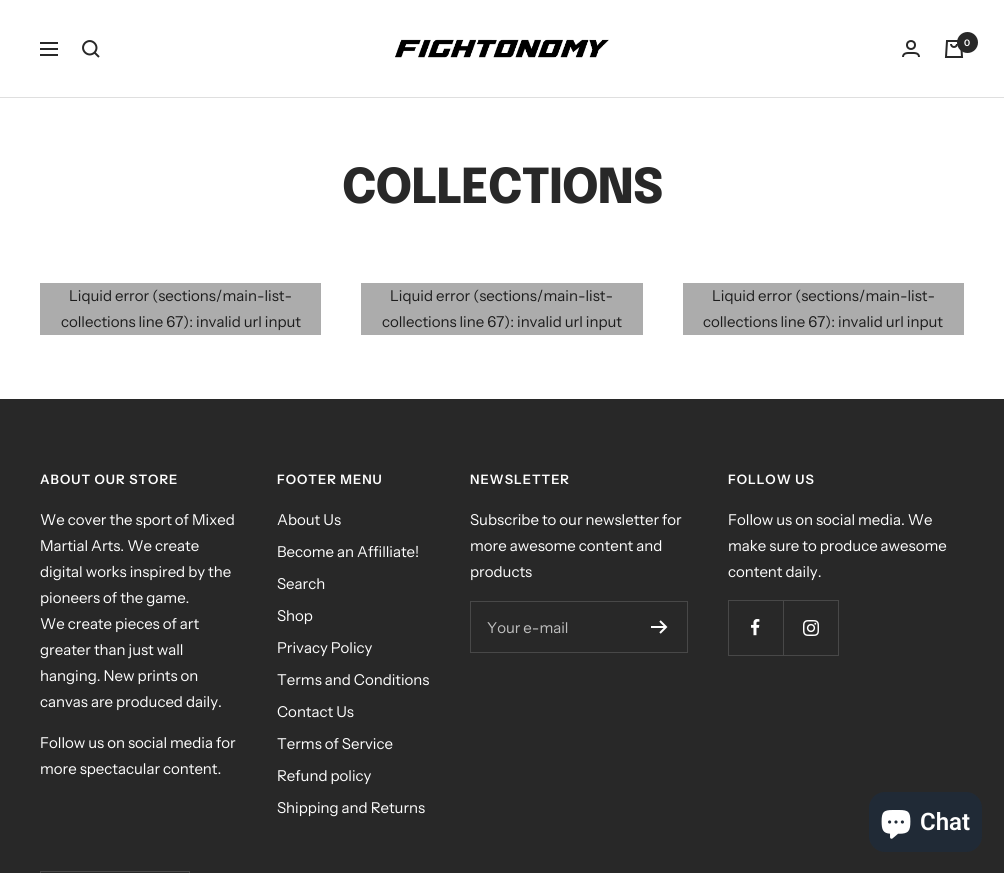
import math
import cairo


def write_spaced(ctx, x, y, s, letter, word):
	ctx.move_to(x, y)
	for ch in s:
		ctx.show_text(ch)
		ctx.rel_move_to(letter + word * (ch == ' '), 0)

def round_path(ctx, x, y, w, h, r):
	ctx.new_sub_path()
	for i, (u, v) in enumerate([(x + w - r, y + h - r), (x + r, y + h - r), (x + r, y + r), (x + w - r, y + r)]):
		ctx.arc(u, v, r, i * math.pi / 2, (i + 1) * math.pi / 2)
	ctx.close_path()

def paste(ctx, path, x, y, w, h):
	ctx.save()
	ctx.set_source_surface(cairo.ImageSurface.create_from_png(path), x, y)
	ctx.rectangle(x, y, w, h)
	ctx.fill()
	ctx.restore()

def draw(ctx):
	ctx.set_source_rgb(1, 1, 1)
	ctx.paint()
	ctx.set_source_rgb(0.875, 0.875, 0.875)
	ctx.rectangle(0, 97, 1004, 1)
	ctx.fill()
	ctx.new_path()
	ctx.move_to(40, 43)
	ctx.line_to(58, 43)
	ctx.move_to(40, 55)
	ctx.line_to(58, 55)
	ctx.close_path()
	ctx.move_to(40, 49)
	ctx.line_to(58, 49)
	ctx.close_path()
	ctx.move_to(94.5, 52.5)
	ctx.curve_to(100.5, 46, 91.5, 37, 85, 43)
	ctx.curve_to(79, 49.5, 88, 58.5, 94.5, 52.5)
	ctx.close_path()
	ctx.move_to(94.5, 52.5)
	ctx.line_to(99, 57)
	ctx.set_source_rgb(0.157, 0.157, 0.157)
	ctx.stroke()
	paste(ctx, 'media/1.png', 395, 39, 214, 19)
	ctx.arc(911, 45, 4, 0, 2 * math.pi)
	ctx.stroke()
	ctx.new_path()
	ctx.move_to(903, 57)
	ctx.curve_to(903, 52.5, 908, 53, 911, 53)
	ctx.curve_to(914, 53, 919, 52.5, 919, 57)
	ctx.stroke()
	paste(ctx, 'media/2.png', 944, 40, 20, 18)
	ctx.arc(967.5, 42.5, 10.5, 0, 2 * math.pi)
	ctx.fill()
	ctx.select_font_face('Instrument Sans SemiBold')
	ctx.set_font_size(9)
	ctx.set_source_rgb(1, 1, 1)
	ctx.move_to(964, 46)
	ctx.show_text('0')
	ctx.select_font_face('Epilogue ExtraBold')
	ctx.set_font_size(48)
	ctx.set_source_rgb(0.157, 0.157, 0.157)
	write_spaced(ctx, 342, 203, 'COLLECTIONS', -1, 0)
	ctx.set_source_rgb(0.675, 0.675, 0.675)
	ctx.rectangle(40, 283, 281, 52)
	ctx.fill()
	ctx.select_font_face('Instrument Sans')
	ctx.set_font_size(15)
	ctx.set_source_rgb(0.11, 0.11, 0.11)
	ctx.move_to(69, 301)
	ctx.show_text('Liquid error (sections/main-list-')
	ctx.move_to(61, 327)
	ctx.show_text('collections line 67): invalid url input')
	ctx.set_source_rgb(0.675, 0.675, 0.675)
	ctx.rectangle(361, 283, 282, 52)
	ctx.fill()
	ctx.set_source_rgb(0.11, 0.11, 0.11)
	ctx.move_to(390, 301)
	ctx.show_text('Liquid error (sections/main-list-')
	ctx.move_to(382, 327)
	ctx.show_text('collections line 67): invalid url input')
	ctx.set_source_rgb(0.675, 0.675, 0.675)
	ctx.rectangle(683, 283, 281, 52)
	ctx.fill()
	ctx.set_source_rgb(0.11, 0.11, 0.11)
	ctx.move_to(712, 301)
	ctx.show_text('Liquid error (sections/main-list-')
	ctx.move_to(703, 327)
	ctx.show_text('collections line 67): invalid url input')
	ctx.set_source_rgb(0.157, 0.157, 0.157)
	ctx.rectangle(0, 399, 1004, 474)
	ctx.fill()
	ctx.select_font_face('Instrument Sans SemiBold')
	ctx.set_font_size(13)
	ctx.set_source_rgb(1, 1, 1)
	write_spaced(ctx, 40, 484, 'ABOUT OUR STORE', 1, 0)
	ctx.select_font_face('Instrument Sans')
	ctx.set_font_size(15)
	for x, y, s in [
		(40, 525, 'We cover the sport of Mixed'),
		(40, 551, 'Martial Arts. We create'),
		(40, 577, 'digital works inspired by the'),
		(40, 603, 'pioneers of the game.'),
		(40, 629, 'We create pieces of art'),
		(40, 655, 'greater than just wall'),
		(40, 681, 'hanging. New prints on'),
		(40, 707, 'canvas are produced daily.'),
		(40, 748, 'Follow us on social media for'),
		(40, 774, 'more spectacular content.'),
	]:
		ctx.move_to(x, y)
		ctx.show_text(s)
	ctx.select_font_face('Instrument Sans SemiBold')
	ctx.set_font_size(13)
	write_spaced(ctx, 277, 484, 'FOOTER MENU', 1, 0)
	ctx.select_font_face('Instrument Sans')
	ctx.set_font_size(15)
	for x, y, s in [
		(277, 525, 'About Us'),
		(277, 557, 'Become an Affilliate!'),
		(277, 589, 'Search'),
		(277, 621, 'Shop'),
		(277, 653, 'Privacy Policy'),
		(277, 685, 'Terms and Conditions'),
		(277, 717, 'Contact Us'),
		(277, 749, 'Terms of Service'),
		(277, 781, 'Refund policy'),
		(277, 813, 'Shipping and Returns'),
	]:
		ctx.move_to(x, y)
		ctx.show_text(s)
	ctx.select_font_face('Instrument Sans SemiBold')
	ctx.set_font_size(13)
	write_spaced(ctx, 470, 484, 'NEWSLETTER', 1, 0)
	ctx.select_font_face('Instrument Sans')
	ctx.set_font_size(15)
	for x, y, s in [
		(470, 525, 'Subscribe to our newsletter for'),
		(470, 551, 'more awesome content and'),
		(470, 577, 'products'),
	]:
		ctx.move_to(x, y)
		ctx.show_text(s)
	ctx.rectangle(470.5, 601.5, 217, 51)
	ctx.set_source_rgb(0.282, 0.282, 0.282)
	ctx.set_line_width(1)
	ctx.stroke()
	ctx.set_source_rgb(0.749, 0.749, 0.749)
	ctx.move_to(487, 633)
	ctx.show_text('Your e-mail')
	ctx.new_path()
	ctx.move_to(651, 627)
	ctx.line_to(666, 627)
	ctx.move_to(660, 621)
	ctx.line_to(666, 627)
	ctx.line_to(660, 633)
	ctx.set_source_rgb(1, 1, 1)
	ctx.set_line_width(2)
	ctx.stroke()
	ctx.select_font_face('Instrument Sans SemiBold')
	ctx.set_font_size(13)
	write_spaced(ctx, 728, 484, 'FOLLOW US', 1, 0)
	ctx.select_font_face('Instrument Sans')
	ctx.set_font_size(15)
	for x, y, s in [
		(728, 525, 'Follow us on social media. We'),
		(728, 551, 'make sure to produce awesome'),
		(728, 577, 'content daily.'),
	]:
		ctx.move_to(x, y)
		ctx.show_text(s)
	ctx.set_source_rgb(0.282, 0.282, 0.282)
	ctx.new_path()
	ctx.move_to(729, 655)
	ctx.line_to(729, 656)
	ctx.line_to(784, 656)
	ctx.line_to(784, 601)
	ctx.line_to(783, 601)
	ctx.line_to(783, 655)
	ctx.close_path()
	ctx.fill()
	ctx.rectangle(728, 655, 1, 1)
	ctx.rectangle(728, 600, 56, 1)
	ctx.rectangle(728, 600, 1, 55)
	ctx.fill()
	paste(ctx, 'media/3.png', 751, 619, 9, 17)
	ctx.new_path()
	ctx.move_to(784, 655)
	ctx.line_to(784, 656)
	ctx.line_to(839, 656)
	ctx.line_to(839, 601)
	ctx.line_to(838, 601)
	ctx.line_to(838, 655)
	ctx.close_path()
	ctx.fill()
	ctx.rectangle(783, 600, 56, 1)
	ctx.fill()
	paste(ctx, 'media/4.png', 803, 620, 16, 16)
	ctx.rectangle(40.5, 871.5, 149, 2)
	ctx.set_line_width(1)
	ctx.stroke()
	ctx.set_source_rgb(0.125, 0.165, 0.212)
	round_path(ctx, 869, 792, 113, 60, 16)
	ctx.fill()
	paste(ctx, 'media/5.png', 881, 810, 30, 29)
	ctx.select_font_face('Roboto SemiBold')
	ctx.set_font_size(24)
	ctx.set_source_rgb(1, 1, 1)
	ctx.move_to(920, 830)
	ctx.show_text('Chat')


surface = cairo.ImageSurface(cairo.FORMAT_RGB24, 1004, 873)
ctx = cairo.Context(surface)
options = cairo.FontOptions()
options.set_hint_metrics(cairo.HINT_METRICS_OFF)
options.set_hint_style(cairo.HINT_STYLE_NONE)
ctx.set_font_options(options)
ctx.set_miter_limit(4)
draw(ctx)
surface.write_to_png('image.png')
